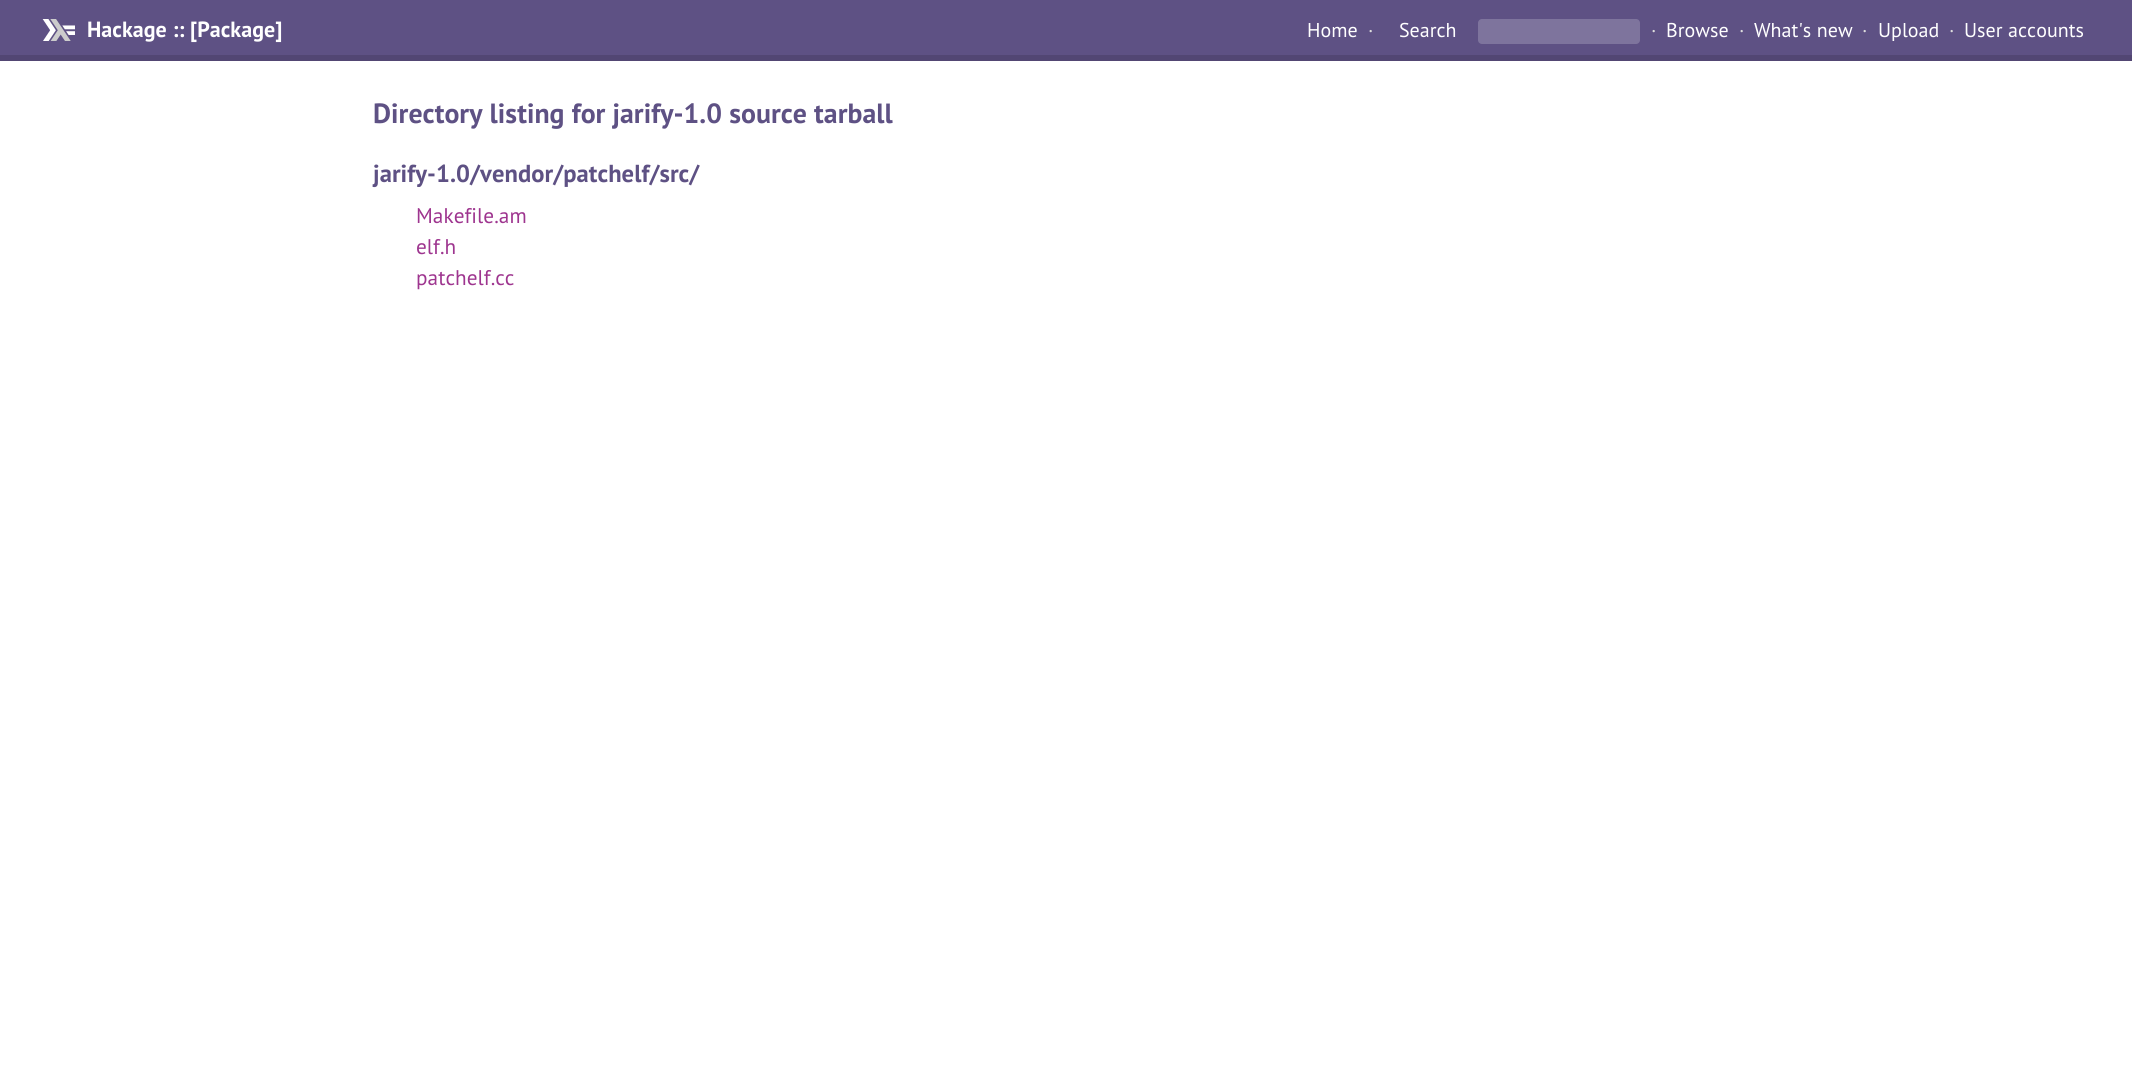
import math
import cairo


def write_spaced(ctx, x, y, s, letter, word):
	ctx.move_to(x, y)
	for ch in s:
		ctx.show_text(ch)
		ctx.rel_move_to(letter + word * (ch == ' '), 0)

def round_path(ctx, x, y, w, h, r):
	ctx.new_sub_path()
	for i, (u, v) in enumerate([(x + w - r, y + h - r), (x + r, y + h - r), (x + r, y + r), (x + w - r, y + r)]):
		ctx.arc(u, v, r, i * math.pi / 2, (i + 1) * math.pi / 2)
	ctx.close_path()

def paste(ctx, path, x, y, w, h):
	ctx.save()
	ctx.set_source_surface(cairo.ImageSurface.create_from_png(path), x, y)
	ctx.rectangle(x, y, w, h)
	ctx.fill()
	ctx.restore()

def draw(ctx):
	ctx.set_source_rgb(1, 1, 1)
	ctx.paint()
	ctx.set_source_rgb(0.369, 0.318, 0.518)
	ctx.rectangle(0, 0, 2132, 55)
	ctx.fill()
	ctx.set_source_rgb(0.322, 0.275, 0.451)
	ctx.rectangle(0, 55, 2132, 6)
	ctx.fill()
	paste(ctx, 'media/1.png', 42, 19, 33, 22)
	ctx.select_font_face('PT Sans', cairo.FONT_SLANT_NORMAL, cairo.FONT_WEIGHT_BOLD)
	ctx.set_font_size(22)
	ctx.set_source_rgb(1, 1, 1)
	write_spaced(ctx, 87, 37, 'Hackage :: [Package]', 0.05, 0)
	ctx.select_font_face('PT Sans')
	ctx.set_font_size(20)
	write_spaced(ctx, 1307, 37, 'Home', 0.05, 0)
	ctx.set_source_rgb(0.867, 0.867, 0.867)
	write_spaced(ctx, 1368, 37, '·', 0.05, 0)
	ctx.set_source_rgb(1, 1, 1)
	ctx.move_to(1399, 37)
	ctx.show_text('Search')
	ctx.set_source_rgb(0.494, 0.455, 0.616)
	round_path(ctx, 1478, 19, 162, 25, 4)
	ctx.fill()
	ctx.set_source_rgb(0.867, 0.867, 0.867)
	write_spaced(ctx, 1651, 37, '·', 0.05, 0)
	ctx.set_source_rgb(1, 1, 1)
	write_spaced(ctx, 1666, 37, 'Browse', 0.05, 0)
	ctx.set_source_rgb(0.867, 0.867, 0.867)
	write_spaced(ctx, 1739, 37, '·', 0.05, 0)
	ctx.set_source_rgb(1, 1, 1)
	write_spaced(ctx, 1754, 37, 'What\'s new', 0.05, 0)
	ctx.set_source_rgb(0.867, 0.867, 0.867)
	write_spaced(ctx, 1862, 37, '·', 0.05, 0)
	ctx.set_source_rgb(1, 1, 1)
	write_spaced(ctx, 1878, 37, 'Upload', 0.05, 0)
	ctx.set_source_rgb(0.867, 0.867, 0.867)
	write_spaced(ctx, 1949, 37, '·', 0.05, 0)
	ctx.set_source_rgb(1, 1, 1)
	write_spaced(ctx, 1964, 37, 'User accounts', 0.05, 0)
	ctx.select_font_face('PT Sans', cairo.FONT_SLANT_NORMAL, cairo.FONT_WEIGHT_BOLD)
	ctx.set_font_size(27.8)
	ctx.set_source_rgb(0.369, 0.318, 0.518)
	write_spaced(ctx, 373, 123, 'Directory listing for jarify-1.0 source tarball', 0.05, 0)
	ctx.set_font_size(24.6)
	write_spaced(ctx, 373, 182, 'jarify-1.0/vendor/patchelf/src/', 0.05, 0)
	ctx.select_font_face('PT Sans')
	ctx.set_font_size(21.25)
	ctx.set_source_rgb(0.62, 0.208, 0.561)
	for x, y, s in [
		(416, 223, 'Makefile.am'),
		(416, 254, 'elf.h'),
		(416, 285, 'patchelf.cc'),
	]:
		write_spaced(ctx, x, y, s, 0.05, 0)


surface = cairo.ImageSurface(cairo.FORMAT_RGB24, 2132, 1078)
ctx = cairo.Context(surface)
options = cairo.FontOptions()
options.set_hint_metrics(cairo.HINT_METRICS_OFF)
options.set_hint_style(cairo.HINT_STYLE_NONE)
ctx.set_font_options(options)
ctx.set_miter_limit(4)
draw(ctx)
surface.write_to_png('image.png')
